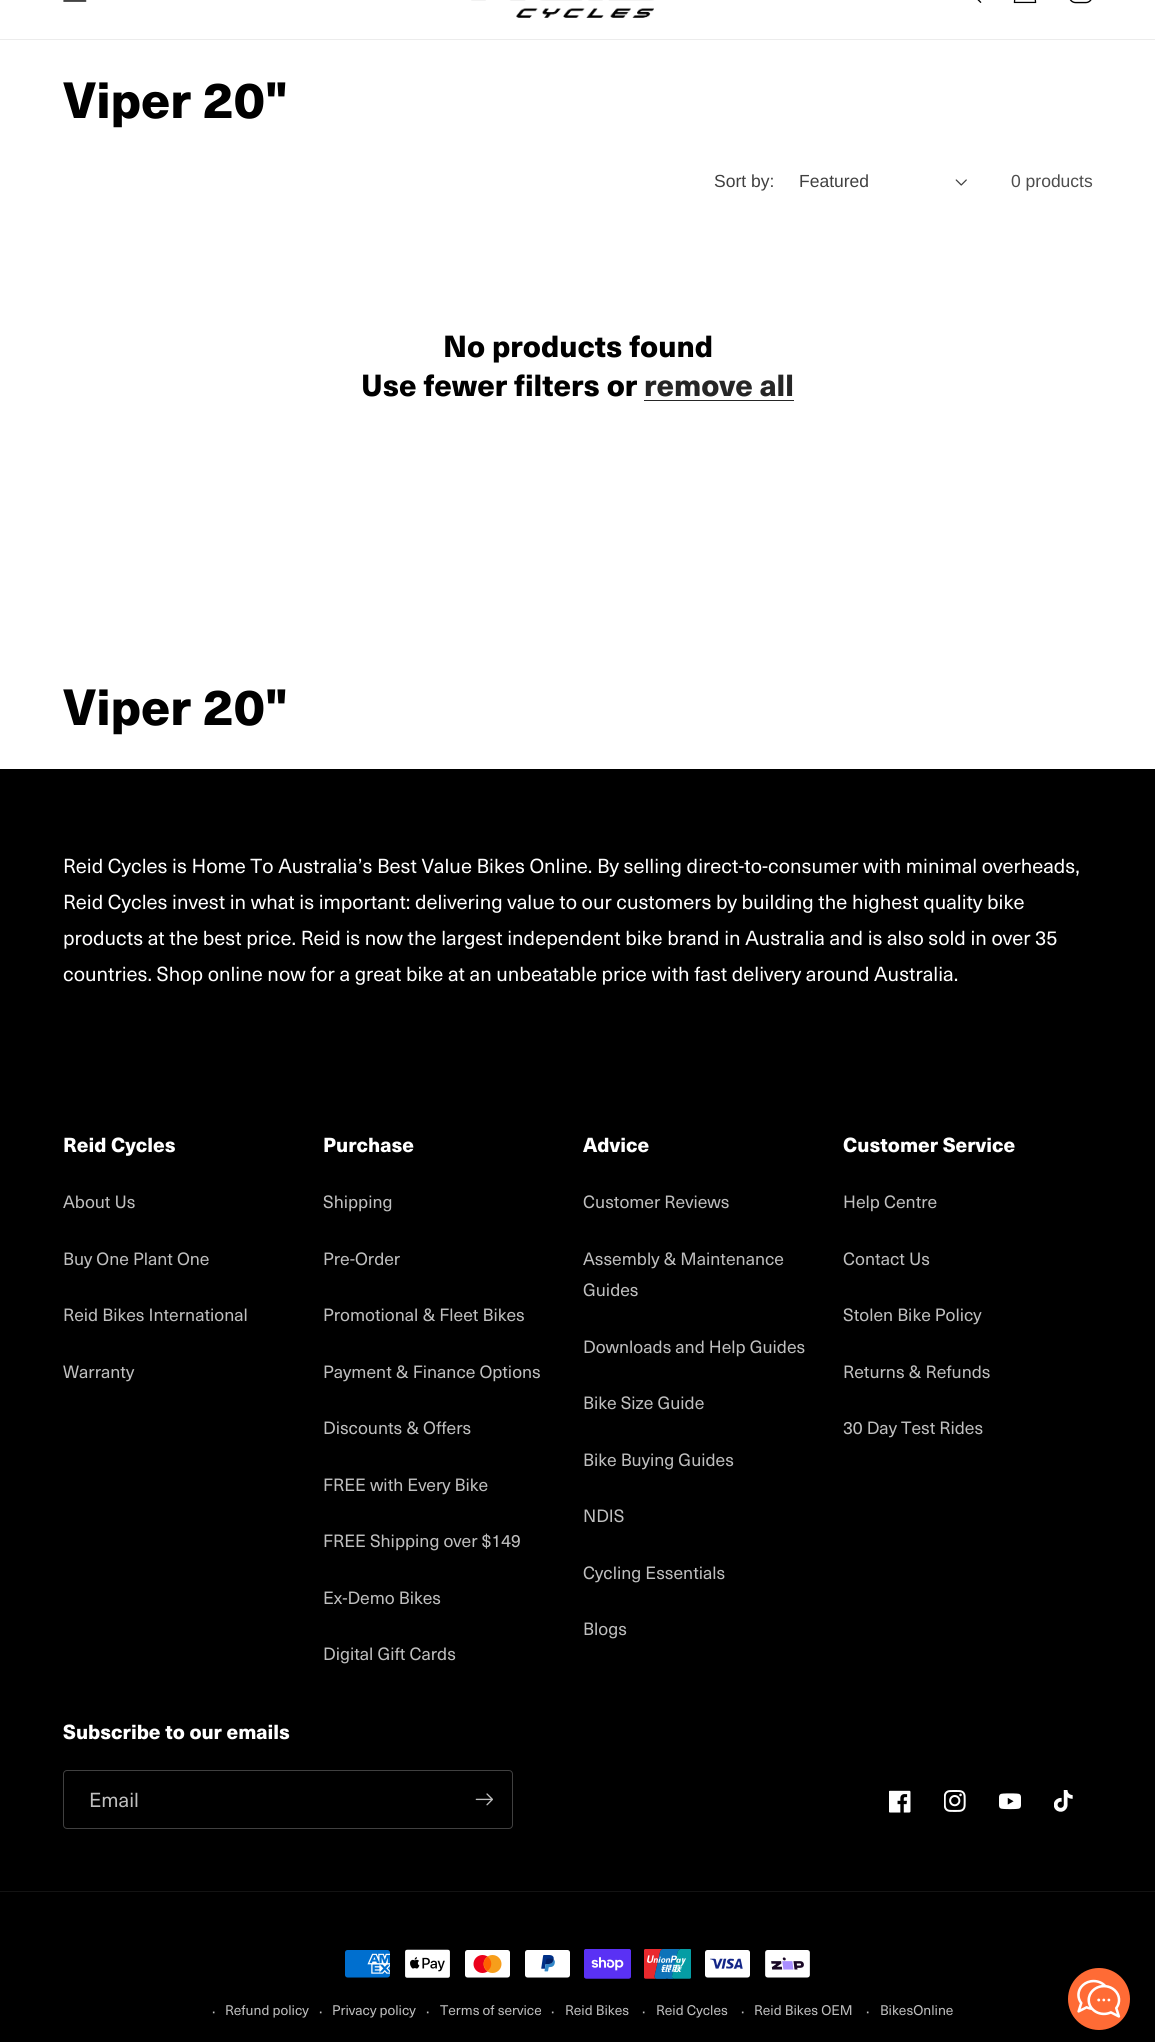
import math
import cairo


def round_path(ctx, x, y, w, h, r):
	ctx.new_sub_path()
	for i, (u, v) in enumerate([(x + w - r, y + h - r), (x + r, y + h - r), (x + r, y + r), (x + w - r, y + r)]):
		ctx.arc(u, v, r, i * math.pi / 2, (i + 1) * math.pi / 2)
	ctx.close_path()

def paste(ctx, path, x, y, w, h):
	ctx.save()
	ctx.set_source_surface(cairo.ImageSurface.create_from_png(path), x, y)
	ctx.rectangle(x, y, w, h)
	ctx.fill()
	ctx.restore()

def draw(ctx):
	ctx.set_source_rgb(1, 1, 1)
	ctx.paint()
	ctx.set_source_rgb(0.922, 0.922, 0.922)
	ctx.rectangle(0, 39, 1155, 1)
	ctx.fill()
	paste(ctx, 'media/1.png', 63, 0, 24, 2)
	paste(ctx, 'media/2.png', 471, 0, 183, 18)
	paste(ctx, 'media/3.png', 977, 0, 5, 3)
	paste(ctx, 'media/4.png', 1013, 0, 24, 4)
	paste(ctx, 'media/5.png', 1069, 0, 23, 4)
	ctx.select_font_face('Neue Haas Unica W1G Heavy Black')
	ctx.set_font_size(50)
	ctx.set_source_rgb(0, 0, 0)
	ctx.move_to(63, 118)
	ctx.show_text('Viper 20"')
	ctx.select_font_face('Liberation Sans')
	ctx.set_font_size(17.5)
	ctx.set_source_rgb(0.251, 0.251, 0.251)
	ctx.move_to(714, 187)
	ctx.show_text('Sort by:')
	ctx.move_to(799, 187)
	ctx.show_text('Featured')
	paste(ctx, 'media/6.png', 955, 179, 12, 7)
	ctx.set_source_rgb(0.302, 0.302, 0.302)
	ctx.move_to(1011, 187)
	ctx.show_text('0 products')
	ctx.select_font_face('Neue Haas Unica W1G Heavy Black')
	ctx.set_font_size(30)
	ctx.set_source_rgb(0, 0, 0)
	ctx.move_to(443, 357)
	ctx.show_text('No products found')
	ctx.move_to(361, 396)
	ctx.show_text('Use fewer filters or')
	ctx.set_source_rgb(0.149, 0.149, 0.149)
	ctx.move_to(644, 396)
	ctx.show_text('remove all')
	ctx.rectangle(644, 400, 150, 1)
	ctx.fill()
	ctx.set_font_size(50)
	ctx.set_source_rgb(0, 0, 0)
	ctx.move_to(63, 725)
	ctx.show_text('Viper 20"')
	ctx.rectangle(0, 769, 1155, 1273)
	ctx.fill()
	ctx.select_font_face('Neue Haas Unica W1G')
	ctx.set_font_size(20)
	ctx.set_source_rgb(1, 1, 1)
	for x, y, s in [
		(63, 873, 'Reid Cycles is Home To Australia’s Best Value Bikes Online. By selling direct-to-consumer with minimal overheads,'),
		(63, 909, 'Reid Cycles invest in what is important: delivering value to our customers by building the highest quality bike'),
		(63, 945, 'products at the best price. Reid is now the largest independent bike brand in Australia and is also sold in over 35'),
		(63, 981, 'countries. Shop online now for a great bike at an unbeatable price with fast delivery around Australia.'),
	]:
		ctx.move_to(x, y)
		ctx.show_text(s)
	ctx.select_font_face('Neue Haas Unica W1G Heavy Black')
	ctx.move_to(63, 1152)
	ctx.show_text('Reid Cycles')
	ctx.select_font_face('Neue Haas Unica W1G')
	ctx.set_font_size(17.5)
	ctx.set_source_rgb(0.749, 0.749, 0.749)
	for x, y, s in [
		(63, 1208, 'About Us'),
		(63, 1265, 'Buy One Plant One'),
		(63, 1321, 'Reid Bikes International'),
		(63, 1378, 'Warranty'),
	]:
		ctx.move_to(x, y)
		ctx.show_text(s)
	ctx.select_font_face('Neue Haas Unica W1G Heavy Black')
	ctx.set_font_size(20)
	ctx.set_source_rgb(1, 1, 1)
	ctx.move_to(323, 1152)
	ctx.show_text('Purchase')
	ctx.select_font_face('Neue Haas Unica W1G')
	ctx.set_font_size(17.5)
	ctx.set_source_rgb(0.749, 0.749, 0.749)
	for x, y, s in [
		(323, 1208, 'Shipping'),
		(323, 1265, 'Pre-Order'),
		(323, 1321, 'Promotional & Fleet Bikes'),
		(323, 1378, 'Payment & Finance Options'),
		(323, 1434, 'Discounts & Offers'),
		(323, 1491, 'FREE with Every Bike'),
		(323, 1547, 'FREE Shipping over $149'),
		(323, 1604, 'Ex-Demo Bikes'),
		(323, 1660, 'Digital Gift Cards'),
	]:
		ctx.move_to(x, y)
		ctx.show_text(s)
	ctx.select_font_face('Neue Haas Unica W1G Heavy Black')
	ctx.set_font_size(20)
	ctx.set_source_rgb(1, 1, 1)
	ctx.move_to(583, 1152)
	ctx.show_text('Advice')
	ctx.select_font_face('Neue Haas Unica W1G')
	ctx.set_font_size(17.5)
	ctx.set_source_rgb(0.749, 0.749, 0.749)
	for x, y, s in [
		(583, 1208, 'Customer Reviews'),
		(583, 1265, 'Assembly & Maintenance'),
		(583, 1296, 'Guides'),
		(583, 1353, 'Downloads and Help Guides'),
		(583, 1409, 'Bike Size Guide'),
		(583, 1466, 'Bike Buying Guides'),
		(583, 1522, 'NDIS'),
		(583, 1579, 'Cycling Essentials'),
		(583, 1635, 'Blogs'),
	]:
		ctx.move_to(x, y)
		ctx.show_text(s)
	ctx.select_font_face('Neue Haas Unica W1G Heavy Black')
	ctx.set_font_size(20)
	ctx.set_source_rgb(1, 1, 1)
	ctx.move_to(843, 1152)
	ctx.show_text('Customer Service')
	ctx.select_font_face('Neue Haas Unica W1G')
	ctx.set_font_size(17.5)
	ctx.set_source_rgb(0.749, 0.749, 0.749)
	for x, y, s in [
		(843, 1208, 'Help Centre'),
		(843, 1265, 'Contact Us'),
		(843, 1321, 'Stolen Bike Policy'),
		(843, 1378, 'Returns & Refunds'),
		(843, 1434, '30 Day Test Rides'),
	]:
		ctx.move_to(x, y)
		ctx.show_text(s)
	ctx.select_font_face('Neue Haas Unica W1G Heavy Black')
	ctx.set_font_size(20)
	ctx.set_source_rgb(1, 1, 1)
	ctx.move_to(63, 1739)
	ctx.show_text('Subscribe to our emails')
	round_path(ctx, 63.5, 1770.5, 449, 58, 3.5)
	ctx.set_source_rgb(0.251, 0.251, 0.251)
	ctx.set_line_width(1)
	ctx.stroke()
	ctx.select_font_face('Neue Haas Unica W1G')
	ctx.set_source_rgb(0.749, 0.749, 0.749)
	ctx.move_to(89, 1807)
	ctx.show_text('Email')
	paste(ctx, 'media/7.png', 475, 1793, 18, 13)
	paste(ctx, 'media/8.png', 889, 1790, 22, 23)
	paste(ctx, 'media/9.png', 944, 1790, 22, 22)
	paste(ctx, 'media/10.png', 999, 1793, 22, 17)
	paste(ctx, 'media/11.png', 1054, 1790, 19, 22)
	ctx.set_source_rgb(0.078, 0.078, 0.078)
	ctx.rectangle(0, 1891, 1155, 1)
	ctx.fill()
	paste(ctx, 'media/12.png', 345, 1950, 45, 28)
	paste(ctx, 'media/13.png', 405, 1949, 45, 29)
	paste(ctx, 'media/14.png', 465, 1950, 45, 28)
	paste(ctx, 'media/15.png', 525, 1950, 45, 28)
	paste(ctx, 'media/16.png', 584, 1949, 47, 30)
	paste(ctx, 'media/17.png', 644, 1949, 47, 30)
	paste(ctx, 'media/18.png', 705, 1950, 45, 28)
	paste(ctx, 'media/19.png', 765, 1950, 45, 28)
	ctx.set_font_size(15)
	ctx.set_source_rgb(0.749, 0.749, 0.749)
	ctx.move_to(212, 2017)
	ctx.show_text('·')
	ctx.set_font_size(13.75)
	ctx.move_to(225, 2015)
	ctx.show_text('Refund policy')
	ctx.set_font_size(15)
	ctx.move_to(319, 2017)
	ctx.show_text('·')
	ctx.set_font_size(13.75)
	ctx.move_to(332, 2015)
	ctx.show_text('Privacy policy')
	ctx.set_font_size(15)
	ctx.move_to(426, 2017)
	ctx.show_text('·')
	ctx.set_font_size(13.75)
	ctx.move_to(440, 2015)
	ctx.show_text('Terms of service')
	ctx.set_font_size(15)
	ctx.move_to(551, 2017)
	ctx.show_text('·')
	ctx.set_font_size(13.75)
	ctx.move_to(565, 2015)
	ctx.show_text('Reid Bikes')
	ctx.set_font_size(15)
	ctx.move_to(642, 2017)
	ctx.show_text('·')
	ctx.set_font_size(13.75)
	ctx.move_to(656, 2015)
	ctx.show_text('Reid Cycles')
	ctx.set_font_size(15)
	ctx.move_to(741, 2017)
	ctx.show_text('·')
	ctx.set_font_size(13.75)
	ctx.move_to(754, 2015)
	ctx.show_text('Reid Bikes OEM')
	ctx.set_font_size(15)
	ctx.move_to(866, 2017)
	ctx.show_text('·')
	ctx.set_font_size(13.75)
	ctx.move_to(880, 2015)
	ctx.show_text('BikesOnline')
	ctx.set_source_rgb(1, 0.42, 0.208)
	ctx.new_path()
	ctx.arc(1099, 1999, 31, 0, 2 * math.pi)
	ctx.fill()
	paste(ctx, 'media/20.png', 1077, 1979, 44, 39)


surface = cairo.ImageSurface(cairo.FORMAT_RGB24, 1155, 2042)
ctx = cairo.Context(surface)
options = cairo.FontOptions()
options.set_hint_metrics(cairo.HINT_METRICS_OFF)
options.set_hint_style(cairo.HINT_STYLE_NONE)
ctx.set_font_options(options)
ctx.set_miter_limit(4)
draw(ctx)
surface.write_to_png('image.png')
